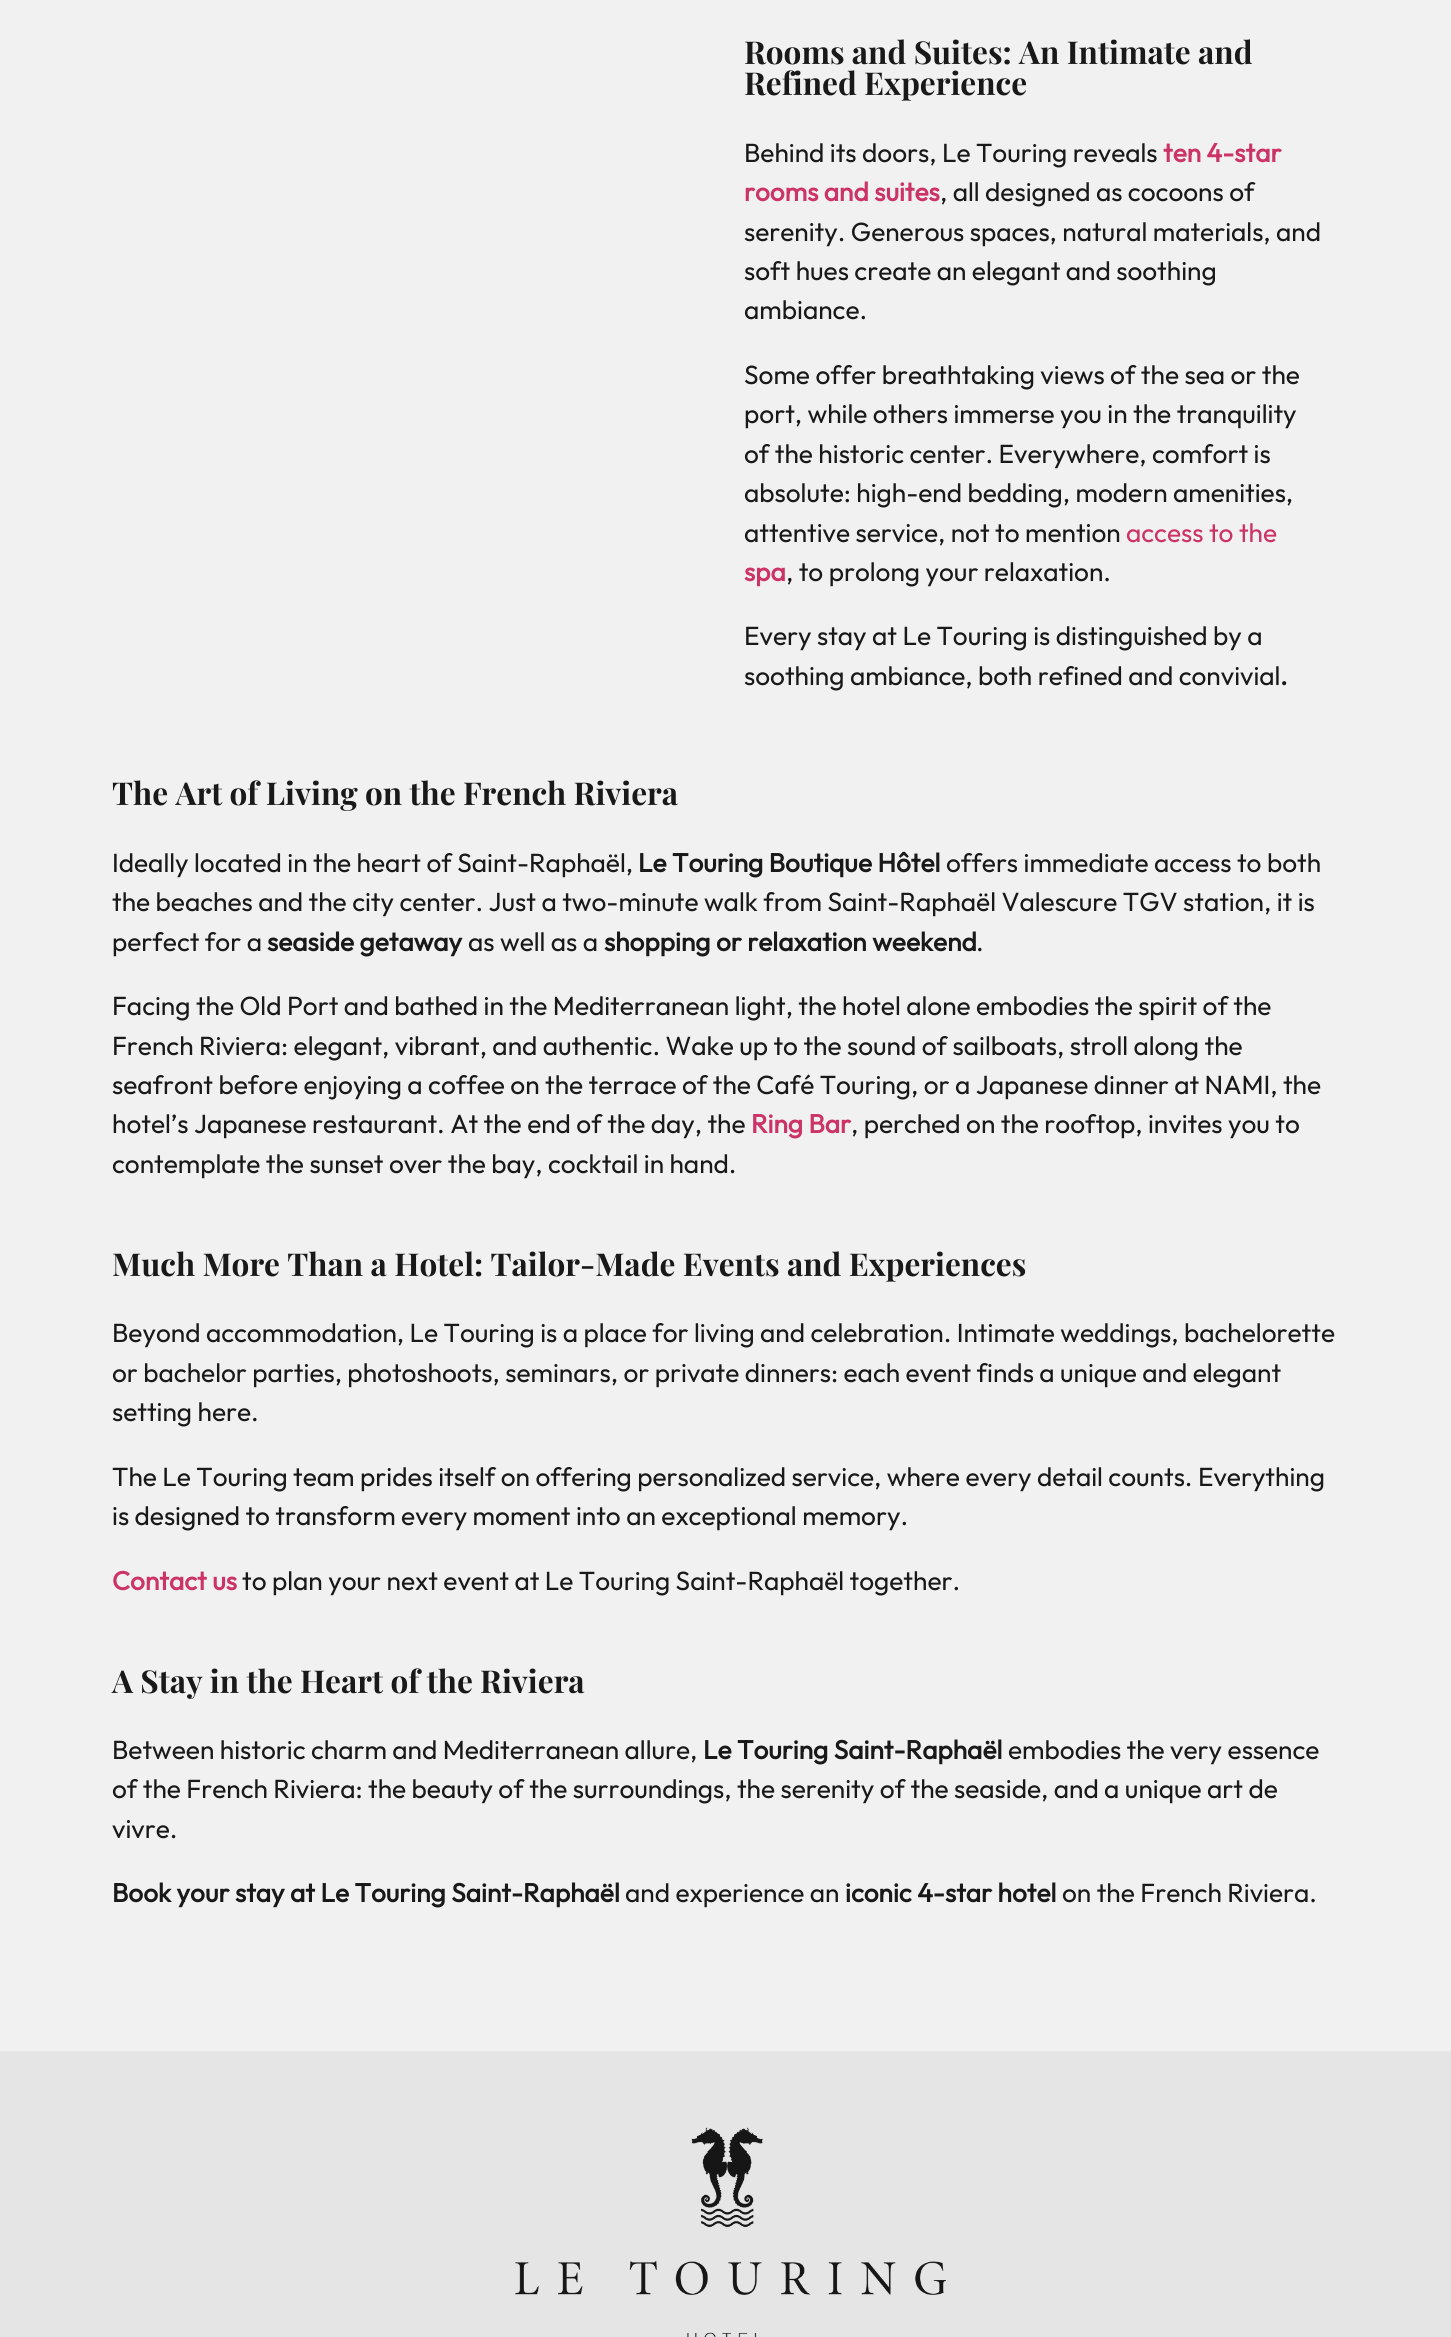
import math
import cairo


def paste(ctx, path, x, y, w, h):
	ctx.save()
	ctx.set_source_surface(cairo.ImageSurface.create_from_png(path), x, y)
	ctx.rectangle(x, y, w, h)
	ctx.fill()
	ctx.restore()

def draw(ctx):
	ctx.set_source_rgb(0.945, 0.945, 0.945)
	ctx.paint()
	ctx.select_font_face('Playfair Display', cairo.FONT_SLANT_NORMAL, cairo.FONT_WEIGHT_BOLD)
	ctx.set_font_size(31.5)
	ctx.set_source_rgb(0.098, 0.098, 0.098)
	ctx.move_to(744, 64)
	ctx.show_text('Rooms and Suites: An Intimate and')
	ctx.move_to(744, 95)
	ctx.show_text('Refined Experience')
	ctx.select_font_face('Outfit')
	ctx.set_font_size(26.25)
	ctx.move_to(744, 162)
	ctx.show_text('Behind its doors, Le Touring reveals')
	ctx.select_font_face('Outfit', cairo.FONT_SLANT_NORMAL, cairo.FONT_WEIGHT_BOLD)
	ctx.set_source_rgb(0.8, 0.2, 0.4)
	ctx.move_to(1163, 162)
	ctx.show_text('ten 4-star')
	ctx.move_to(744, 201)
	ctx.show_text('rooms and suites')
	ctx.select_font_face('Outfit')
	ctx.set_source_rgb(0.098, 0.098, 0.098)
	for x, y, s in [
		(940, 201, ', all designed as cocoons of'),
		(744, 241, 'serenity. Generous spaces, natural materials, and'),
		(744, 280, 'soft hues create an elegant and soothing'),
		(744, 319, 'ambiance.'),
		(744, 384, 'Some offer breathtaking views of the sea or the'),
		(744, 423, 'port, while others immerse you in the tranquility'),
		(744, 463, 'of the historic center. Everywhere, comfort is'),
		(744, 502, 'absolute: high-end bedding, modern amenities,'),
		(744, 542, 'attentive service, not to mention'),
	]:
		ctx.move_to(x, y)
		ctx.show_text(s)
	ctx.set_source_rgb(0.8, 0.2, 0.4)
	ctx.move_to(1126, 542)
	ctx.show_text('access to the')
	ctx.select_font_face('Outfit', cairo.FONT_SLANT_NORMAL, cairo.FONT_WEIGHT_BOLD)
	ctx.move_to(744, 581)
	ctx.show_text('spa')
	ctx.select_font_face('Outfit')
	ctx.set_source_rgb(0.098, 0.098, 0.098)
	for x, y, s in [
		(786, 581, ', to prolong your relaxation.'),
		(744, 645, 'Every stay at Le Touring is distinguished by a'),
		(744, 685, 'soothing ambiance, both refined and convivial'),
	]:
		ctx.move_to(x, y)
		ctx.show_text(s)
	ctx.select_font_face('Outfit', cairo.FONT_SLANT_NORMAL, cairo.FONT_WEIGHT_BOLD)
	ctx.move_to(1280, 685)
	ctx.show_text('.')
	ctx.select_font_face('Playfair Display', cairo.FONT_SLANT_NORMAL, cairo.FONT_WEIGHT_BOLD)
	ctx.set_font_size(31.5)
	ctx.move_to(112, 805)
	ctx.show_text('The Art of Living on the French Riviera')
	ctx.select_font_face('Outfit')
	ctx.set_font_size(26.25)
	ctx.move_to(112, 872)
	ctx.show_text('Ideally located in the heart of Saint-Raphaël,')
	ctx.select_font_face('Outfit', cairo.FONT_SLANT_NORMAL, cairo.FONT_WEIGHT_BOLD)
	ctx.move_to(638, 872)
	ctx.show_text('Le Touring Boutique Hôtel')
	ctx.select_font_face('Outfit')
	for x, y, s in [
		(946, 872, 'offers immediate access to both'),
		(112, 911, 'the beaches and the city center. Just a two-minute walk from Saint-Raphaël Valescure TGV station, it is'),
		(112, 951, 'perfect for a'),
	]:
		ctx.move_to(x, y)
		ctx.show_text(s)
	ctx.select_font_face('Outfit', cairo.FONT_SLANT_NORMAL, cairo.FONT_WEIGHT_BOLD)
	ctx.move_to(267, 951)
	ctx.show_text('seaside getaway')
	ctx.select_font_face('Outfit')
	ctx.move_to(468, 951)
	ctx.show_text('as well as a')
	ctx.select_font_face('Outfit', cairo.FONT_SLANT_NORMAL, cairo.FONT_WEIGHT_BOLD)
	ctx.move_to(604, 951)
	ctx.show_text('shopping or relaxation weekend')
	ctx.select_font_face('Outfit')
	for x, y, s in [
		(976, 951, '.'),
		(112, 1015, 'Facing the Old Port and bathed in the Mediterranean light, the hotel alone embodies the spirit of the'),
		(112, 1055, 'French Riviera: elegant, vibrant, and authentic. Wake up to the sound of sailboats, stroll along the'),
		(112, 1094, 'seafront before enjoying a coffee on the terrace of the Café Touring, or a Japanese dinner at NAMI, the'),
		(112, 1133, 'hotel’s Japanese restaurant. At the end of the day, the'),
	]:
		ctx.move_to(x, y)
		ctx.show_text(s)
	ctx.select_font_face('Outfit', cairo.FONT_SLANT_NORMAL, cairo.FONT_WEIGHT_BOLD)
	ctx.set_source_rgb(0.8, 0.2, 0.4)
	ctx.move_to(751, 1133)
	ctx.show_text('Ring Bar')
	ctx.select_font_face('Outfit')
	ctx.set_source_rgb(0.098, 0.098, 0.098)
	ctx.move_to(851, 1133)
	ctx.show_text(', perched on the rooftop, invites you to')
	ctx.move_to(112, 1173)
	ctx.show_text('contemplate the sunset over the bay, cocktail in hand.')
	ctx.select_font_face('Playfair Display', cairo.FONT_SLANT_NORMAL, cairo.FONT_WEIGHT_BOLD)
	ctx.set_font_size(31.5)
	ctx.move_to(112, 1276)
	ctx.show_text('Much More Than a Hotel: Tailor-Made Events and Experiences')
	ctx.select_font_face('Outfit')
	ctx.set_font_size(26.25)
	for x, y, s in [
		(112, 1342, 'Beyond accommodation, Le Touring is a place for living and celebration. Intimate weddings, bachelorette'),
		(112, 1382, 'or bachelor parties, photoshoots, seminars, or private dinners: each event finds a unique and elegant'),
		(112, 1421, 'setting here.'),
		(112, 1486, 'The Le Touring team prides itself on offering personalized service, where every detail counts. Everything'),
		(112, 1525, 'is designed to transform every moment into an exceptional memory.'),
	]:
		ctx.move_to(x, y)
		ctx.show_text(s)
	ctx.select_font_face('Outfit', cairo.FONT_SLANT_NORMAL, cairo.FONT_WEIGHT_BOLD)
	ctx.set_source_rgb(0.8, 0.2, 0.4)
	ctx.move_to(112, 1590)
	ctx.show_text('Contact us')
	ctx.select_font_face('Outfit')
	ctx.set_source_rgb(0.098, 0.098, 0.098)
	ctx.move_to(242, 1590)
	ctx.show_text('to plan your next event at Le Touring Saint-Raphaël together.')
	ctx.select_font_face('Playfair Display', cairo.FONT_SLANT_NORMAL, cairo.FONT_WEIGHT_BOLD)
	ctx.set_font_size(31.5)
	ctx.move_to(112, 1693)
	ctx.show_text('A Stay in the Heart of the Riviera')
	ctx.select_font_face('Outfit')
	ctx.set_font_size(26.25)
	ctx.move_to(112, 1759)
	ctx.show_text('Between historic charm and Mediterranean allure,')
	ctx.select_font_face('Outfit', cairo.FONT_SLANT_NORMAL, cairo.FONT_WEIGHT_BOLD)
	ctx.move_to(703, 1759)
	ctx.show_text('Le Touring Saint-Raphaël')
	ctx.select_font_face('Outfit')
	for x, y, s in [
		(1008, 1759, 'embodies the very essence'),
		(112, 1798, 'of the French Riviera: the beauty of the surroundings, the serenity of the seaside, and a unique art de'),
		(112, 1838, 'vivre.'),
	]:
		ctx.move_to(x, y)
		ctx.show_text(s)
	ctx.select_font_face('Outfit', cairo.FONT_SLANT_NORMAL, cairo.FONT_WEIGHT_BOLD)
	ctx.move_to(112, 1902)
	ctx.show_text('Book your stay at Le Touring Saint-Raphaël')
	ctx.select_font_face('Outfit')
	ctx.move_to(625, 1902)
	ctx.show_text('and experience an')
	ctx.select_font_face('Outfit', cairo.FONT_SLANT_NORMAL, cairo.FONT_WEIGHT_BOLD)
	ctx.move_to(845, 1902)
	ctx.show_text('iconic 4-star hotel')
	ctx.select_font_face('Outfit')
	ctx.move_to(1062, 1902)
	ctx.show_text('on the French Riviera.')
	ctx.set_source_rgb(0.898, 0.898, 0.898)
	ctx.rectangle(0, 2051, 1451, 286)
	ctx.fill()
	paste(ctx, 'media/1.png', 515, 2127, 432, 210)


surface = cairo.ImageSurface(cairo.FORMAT_RGB24, 1451, 2337)
ctx = cairo.Context(surface)
options = cairo.FontOptions()
options.set_hint_metrics(cairo.HINT_METRICS_OFF)
options.set_hint_style(cairo.HINT_STYLE_NONE)
ctx.set_font_options(options)
ctx.set_miter_limit(4)
draw(ctx)
surface.write_to_png('image.png')
